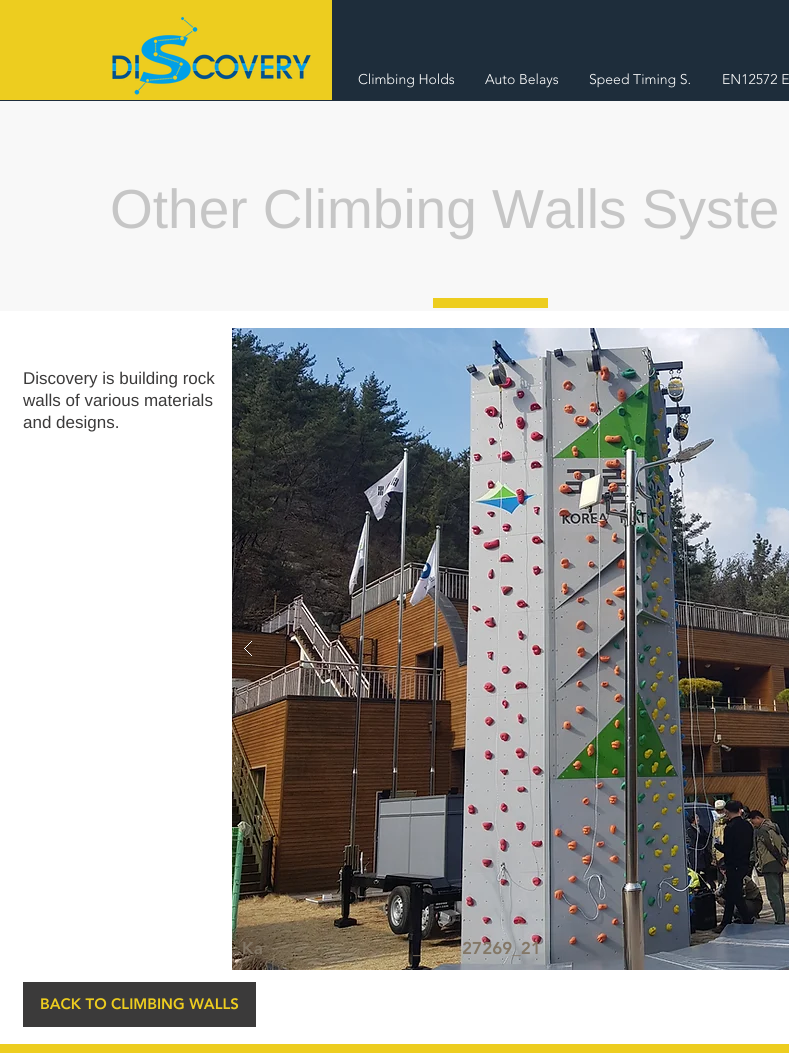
import math
import cairo


def paste(ctx, path, x, y, w, h):
	ctx.save()
	ctx.set_source_surface(cairo.ImageSurface.create_from_png(path), x, y)
	ctx.rectangle(x, y, w, h)
	ctx.fill()
	ctx.restore()

def draw(ctx):
	ctx.set_source_rgb(0.969, 0.969, 0.969)
	ctx.paint()
	ctx.set_source_rgb(0.118, 0.176, 0.231)
	ctx.rectangle(0, 0, 789, 101)
	ctx.fill()
	ctx.set_source_rgb(0.929, 0.804, 0.122)
	ctx.rectangle(0, 0, 332, 100)
	ctx.fill()
	paste(ctx, 'media/1.png', 112, 17, 199, 78)
	ctx.select_font_face('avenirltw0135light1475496 Light')
	ctx.set_font_size(14)
	ctx.set_source_rgb(1, 1, 1)
	for x, y, s in [
		(358, 84, 'Climbing Holds'),
		(485, 84, 'Auto Belays'),
		(589, 84, 'Speed Timing S.'),
		(722, 84, 'EN12572 E'),
	]:
		ctx.move_to(x, y)
		ctx.show_text(s)
	ctx.select_font_face('Liberation Sans')
	ctx.set_font_size(55)
	ctx.set_source_rgb(0.776, 0.776, 0.776)
	ctx.move_to(110, 228)
	ctx.show_text('Other Climbing Walls Syste')
	ctx.set_source_rgb(0.929, 0.804, 0.122)
	ctx.rectangle(433, 298, 115, 10)
	ctx.fill()
	ctx.set_source_rgb(1, 1, 1)
	ctx.rectangle(0, 311, 789, 733)
	ctx.fill()
	ctx.set_font_size(17)
	ctx.set_source_rgb(0.231, 0.227, 0.227)
	for x, y, s in [
		(23, 384, 'Discovery is building rock'),
		(23, 406, 'walls of various materials'),
		(23, 428, 'and designs.'),
	]:
		ctx.move_to(x, y)
		ctx.show_text(s)
	paste(ctx, 'media/3.png', 232, 328, 557, 642)
	paste(ctx, 'media/2.png', 244, 641, 8, 16)
	ctx.select_font_face('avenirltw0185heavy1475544 Black')
	ctx.set_source_rgb(0.514, 0.467, 0.4)
	for x, y, s in [
		(242, 954, 'Ka'),
		(413, 954, '_'),
		(462, 954, '27269_21'),
	]:
		ctx.move_to(x, y)
		ctx.show_text(s)
	ctx.set_source_rgb(0.231, 0.227, 0.227)
	ctx.rectangle(23, 982, 233, 45)
	ctx.fill()
	ctx.set_font_size(15)
	ctx.set_source_rgb(0.929, 0.804, 0.122)
	ctx.move_to(40, 1009)
	ctx.show_text('BACK TO CLIMBING WALLS')
	ctx.rectangle(0, 1044, 789, 9)
	ctx.fill()


surface = cairo.ImageSurface(cairo.FORMAT_RGB24, 789, 1053)
ctx = cairo.Context(surface)
options = cairo.FontOptions()
options.set_hint_metrics(cairo.HINT_METRICS_OFF)
options.set_hint_style(cairo.HINT_STYLE_NONE)
ctx.set_font_options(options)
ctx.set_miter_limit(4)
draw(ctx)
surface.write_to_png('image.png')
